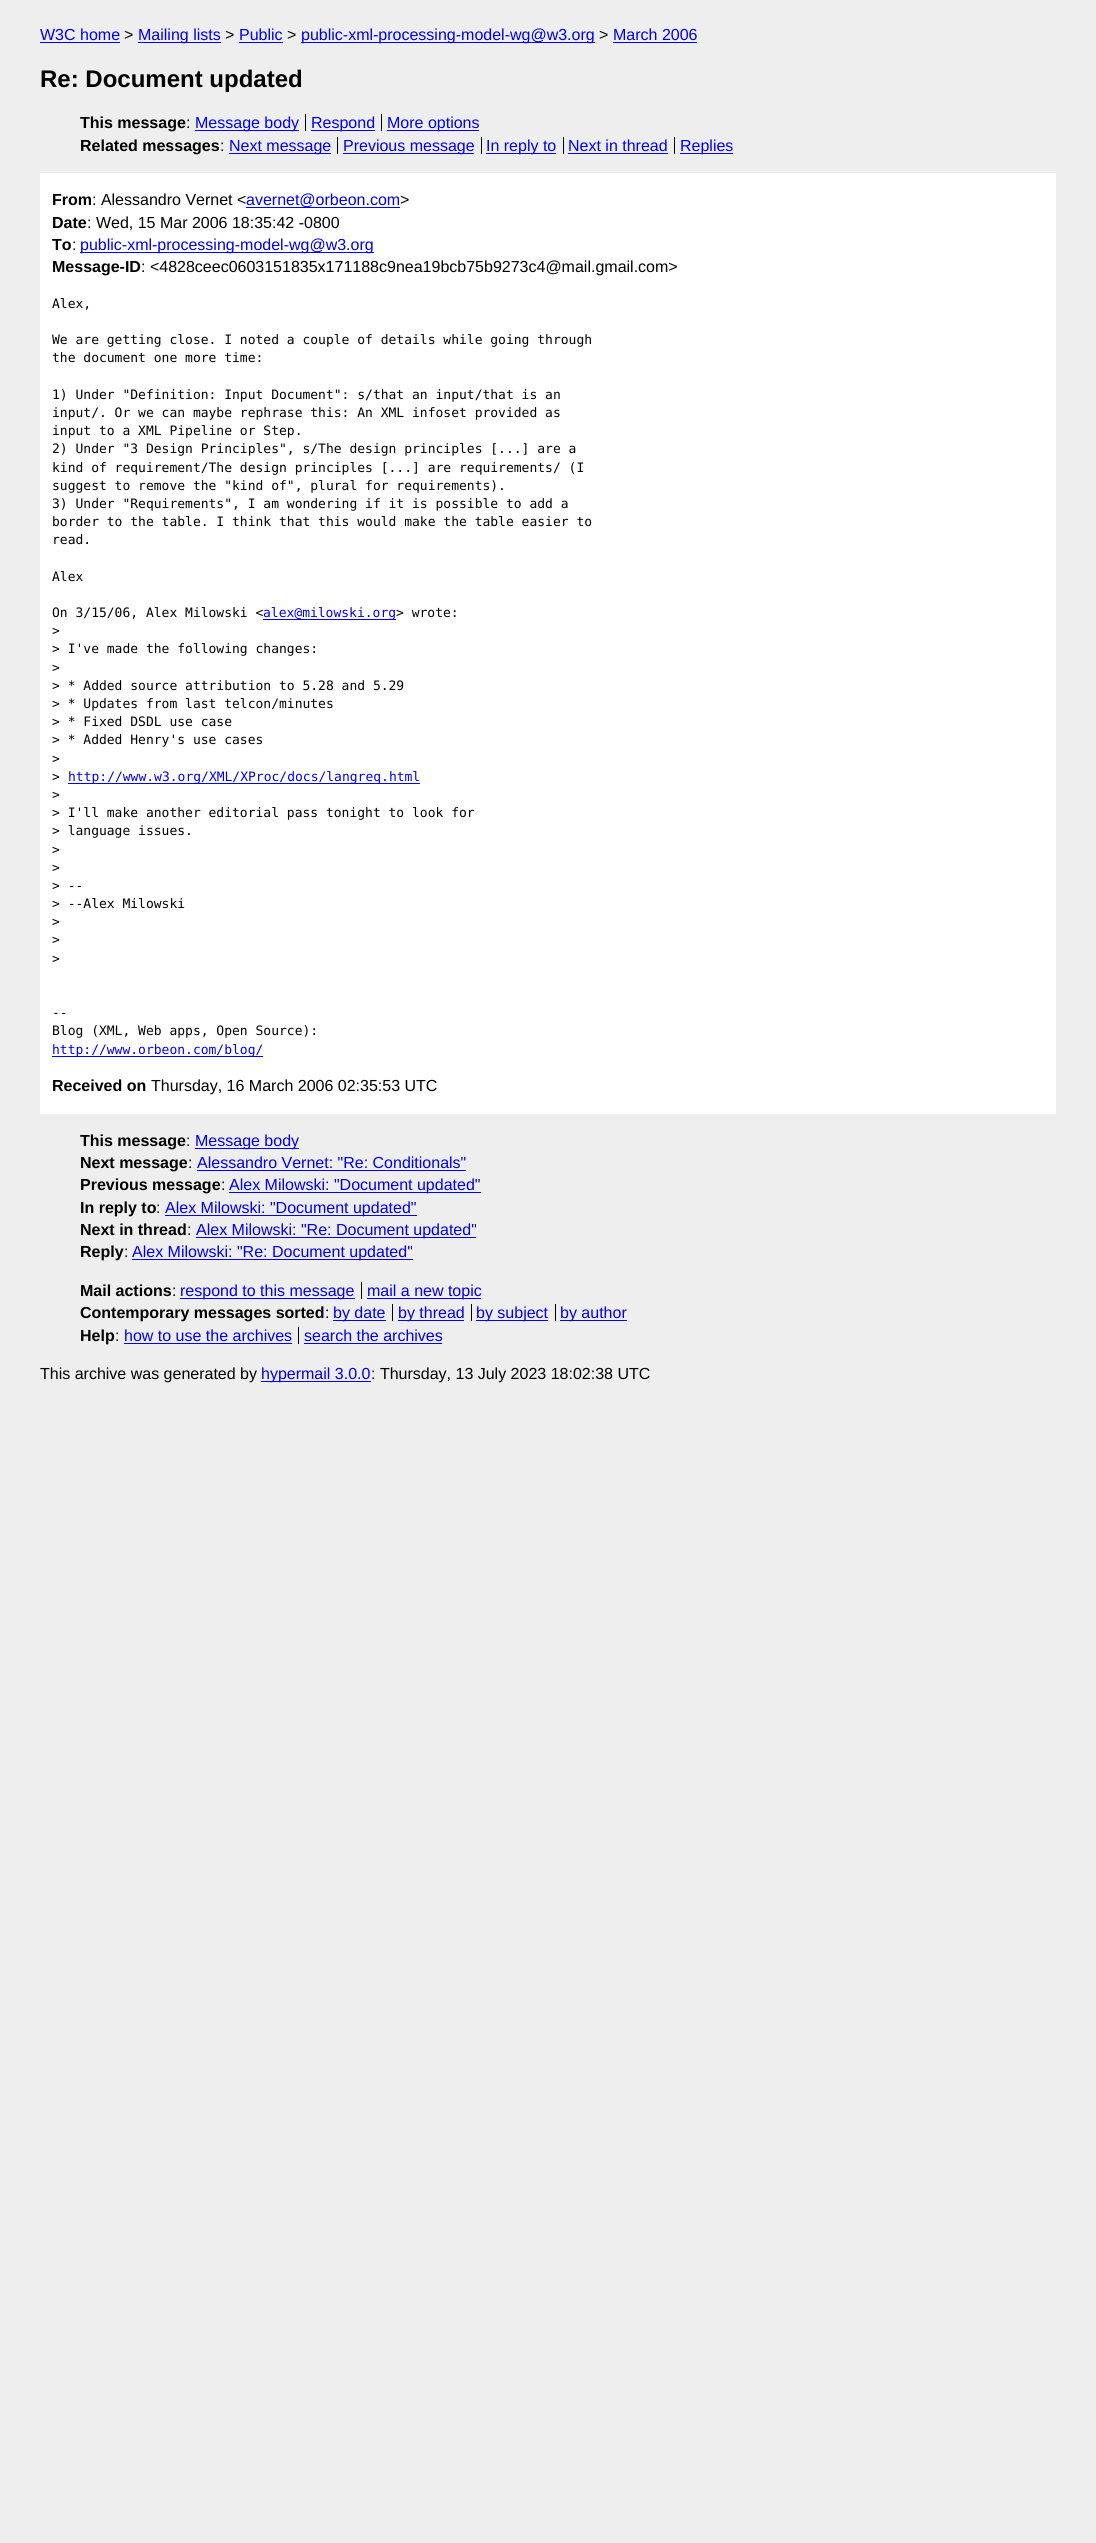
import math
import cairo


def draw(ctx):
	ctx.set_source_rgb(0.933, 0.933, 0.933)
	ctx.paint()
	ctx.select_font_face('Liberation Sans')
	ctx.set_font_size(16)
	ctx.set_source_rgb(0, 0, 0.933)
	ctx.move_to(40, 40)
	ctx.show_text('W3C home')
	ctx.rectangle(40, 42, 80, 1)
	ctx.fill()
	ctx.set_source_rgb(0, 0, 0)
	ctx.move_to(124, 40)
	ctx.show_text('>')
	ctx.set_source_rgb(0, 0, 0.933)
	ctx.rectangle(138, 42, 83, 1)
	ctx.fill()
	ctx.move_to(138, 40)
	ctx.show_text('Mailing lists')
	ctx.set_source_rgb(0, 0, 0)
	ctx.move_to(225, 40)
	ctx.show_text('>')
	ctx.set_source_rgb(0, 0, 0.933)
	ctx.move_to(239, 40)
	ctx.show_text('Public')
	ctx.rectangle(239, 42, 44, 1)
	ctx.fill()
	ctx.set_source_rgb(0, 0, 0)
	ctx.move_to(287, 40)
	ctx.show_text('>')
	ctx.set_source_rgb(0, 0, 0.933)
	ctx.rectangle(301, 42, 294, 1)
	ctx.fill()
	ctx.move_to(301, 40)
	ctx.show_text('public-xml-processing-model-wg@w3.org')
	ctx.set_source_rgb(0, 0, 0)
	ctx.move_to(599, 40)
	ctx.show_text('>')
	ctx.set_source_rgb(0, 0, 0.933)
	ctx.move_to(613, 40)
	ctx.show_text('March 2006')
	ctx.rectangle(613, 42, 84, 1)
	ctx.fill()
	ctx.select_font_face('Liberation Sans', cairo.FONT_SLANT_NORMAL, cairo.FONT_WEIGHT_BOLD)
	ctx.set_font_size(24)
	ctx.set_source_rgb(0, 0, 0)
	ctx.move_to(40, 87)
	ctx.show_text('Re: Document updated')
	ctx.set_font_size(16)
	ctx.move_to(80, 128)
	ctx.show_text('This message')
	ctx.select_font_face('Liberation Sans')
	ctx.move_to(186, 128)
	ctx.show_text(':')
	ctx.set_source_rgb(0, 0, 0.933)
	ctx.rectangle(195, 130, 104, 1)
	ctx.fill()
	ctx.move_to(195, 128)
	ctx.show_text('Message body')
	ctx.rectangle(311, 130, 64, 1)
	ctx.fill()
	ctx.move_to(311, 128)
	ctx.show_text('Respond')
	ctx.set_source_rgb(0, 0, 0)
	ctx.rectangle(305, 114, 1, 17)
	ctx.fill()
	ctx.set_source_rgb(0, 0, 0.933)
	ctx.rectangle(387, 130, 92, 1)
	ctx.fill()
	ctx.move_to(387, 128)
	ctx.show_text('More options')
	ctx.set_source_rgb(0, 0, 0)
	ctx.rectangle(381, 114, 1, 17)
	ctx.fill()
	ctx.select_font_face('Liberation Sans', cairo.FONT_SLANT_NORMAL, cairo.FONT_WEIGHT_BOLD)
	ctx.move_to(80, 151)
	ctx.show_text('Related messages')
	ctx.select_font_face('Liberation Sans')
	ctx.move_to(220, 151)
	ctx.show_text(':')
	ctx.set_source_rgb(0, 0, 0.933)
	ctx.rectangle(229, 153, 102, 1)
	ctx.fill()
	ctx.move_to(229, 151)
	ctx.show_text('Next message')
	ctx.rectangle(343, 153, 131, 1)
	ctx.fill()
	ctx.move_to(343, 151)
	ctx.show_text('Previous message')
	ctx.set_source_rgb(0, 0, 0)
	ctx.rectangle(337, 137, 1, 17)
	ctx.fill()
	ctx.set_source_rgb(0, 0, 0.933)
	ctx.rectangle(486, 153, 70, 1)
	ctx.fill()
	ctx.move_to(486, 151)
	ctx.show_text('In reply to')
	ctx.set_source_rgb(0, 0, 0)
	ctx.rectangle(481, 137, 1, 17)
	ctx.fill()
	ctx.set_source_rgb(0, 0, 0.933)
	ctx.move_to(568, 151)
	ctx.show_text('Next in thread')
	ctx.set_source_rgb(0, 0, 0)
	ctx.rectangle(563, 137, 1, 17)
	ctx.rectangle(674, 137, 1, 17)
	ctx.fill()
	ctx.set_source_rgb(0, 0, 0.933)
	ctx.rectangle(568, 153, 100, 1)
	ctx.rectangle(680, 153, 53, 1)
	ctx.fill()
	ctx.move_to(680, 151)
	ctx.show_text('Replies')
	ctx.set_source_rgb(1, 1, 1)
	ctx.rectangle(40, 173, 1016, 941)
	ctx.fill()
	ctx.select_font_face('Liberation Sans', cairo.FONT_SLANT_NORMAL, cairo.FONT_WEIGHT_BOLD)
	ctx.set_source_rgb(0, 0, 0)
	ctx.move_to(52, 205)
	ctx.show_text('From')
	ctx.select_font_face('Liberation Sans')
	ctx.move_to(92, 205)
	ctx.show_text(': Alessandro Vernet <')
	ctx.set_source_rgb(0, 0, 0.933)
	ctx.rectangle(246, 207, 154, 1)
	ctx.fill()
	ctx.move_to(246, 205)
	ctx.show_text('avernet@orbeon.com')
	ctx.set_source_rgb(0, 0, 0)
	ctx.move_to(400, 205)
	ctx.show_text('>')
	ctx.select_font_face('Liberation Sans', cairo.FONT_SLANT_NORMAL, cairo.FONT_WEIGHT_BOLD)
	ctx.move_to(52, 228)
	ctx.show_text('Date')
	ctx.select_font_face('Liberation Sans')
	ctx.move_to(87, 228)
	ctx.show_text(': Wed, 15 Mar 2006 18:35:42 -0800')
	ctx.select_font_face('Liberation Sans', cairo.FONT_SLANT_NORMAL, cairo.FONT_WEIGHT_BOLD)
	ctx.move_to(52, 250)
	ctx.show_text('To')
	ctx.select_font_face('Liberation Sans')
	ctx.move_to(72, 250)
	ctx.show_text(':')
	ctx.set_source_rgb(0, 0, 0.933)
	ctx.rectangle(80, 252, 294, 1)
	ctx.fill()
	ctx.move_to(80, 250)
	ctx.show_text('public-xml-processing-model-wg@w3.org')
	ctx.select_font_face('Liberation Sans', cairo.FONT_SLANT_NORMAL, cairo.FONT_WEIGHT_BOLD)
	ctx.set_source_rgb(0, 0, 0)
	ctx.move_to(52, 272)
	ctx.show_text('Message-ID')
	ctx.select_font_face('Liberation Sans')
	ctx.move_to(141, 272)
	ctx.show_text(': <4828ceec0603151835x171188c9nea19bcb75b9273c4@mail.gmail.com>')
	ctx.select_font_face('DejaVu Sans Mono')
	ctx.set_font_size(13)
	for x, y, s in [
		(52, 308, 'Alex,'),
		(52, 344, 'We are getting close. I noted a couple of details while going through'),
		(52, 362, 'the document one more time:'),
		(52, 399, '1) Under "Definition: Input Document": s/that an input/that is an'),
		(52, 417, 'input/. Or we can maybe rephrase this: An XML infoset provided as'),
		(52, 435, 'input to a XML Pipeline or Step.'),
		(52, 453, '2) Under "3 Design Principles", s/The design principles [...] are a'),
		(52, 472, 'kind of requirement/The design principles [...] are requirements/ (I'),
		(52, 490, 'suggest to remove the "kind of", plural for requirements).'),
		(52, 508, '3) Under "Requirements", I am wondering if it is possible to add a'),
		(52, 526, 'border to the table. I think that this would make the table easier to'),
		(52, 544, 'read.'),
		(52, 581, 'Alex'),
		(52, 617, 'On 3/15/06, Alex Milowski <'),
	]:
		ctx.move_to(x, y)
		ctx.show_text(s)
	ctx.set_source_rgb(0, 0, 0.933)
	ctx.rectangle(263, 619, 133, 1)
	ctx.fill()
	ctx.move_to(263, 617)
	ctx.show_text('alex@milowski.org')
	ctx.set_source_rgb(0, 0, 0)
	for x, y, s in [
		(396, 617, '> wrote:'),
		(52, 635, '>'),
		(52, 653, '> I\'ve made the following changes:'),
		(52, 672, '>'),
		(52, 690, '> * Added source attribution to 5.28 and 5.29'),
		(52, 708, '> * Updates from last telcon/minutes'),
		(52, 726, '> * Fixed DSDL use case'),
		(52, 744, '> * Added Henry\'s use cases'),
		(52, 763, '>'),
		(52, 781, '>'),
	]:
		ctx.move_to(x, y)
		ctx.show_text(s)
	ctx.set_source_rgb(0, 0, 0.933)
	ctx.rectangle(68, 783, 352, 1)
	ctx.fill()
	ctx.move_to(68, 781)
	ctx.show_text('http://www.w3.org/XML/XProc/docs/langreq.html')
	ctx.set_source_rgb(0, 0, 0)
	for x, y, s in [
		(52, 799, '>'),
		(52, 817, '> I\'ll make another editorial pass tonight to look for'),
		(52, 835, '> language issues.'),
		(52, 854, '>'),
		(52, 872, '>'),
		(52, 890, '> --'),
		(52, 908, '> --Alex Milowski'),
		(52, 926, '>'),
		(52, 944, '>'),
		(52, 963, '>'),
		(52, 1017, '--'),
		(52, 1035, 'Blog (XML, Web apps, Open Source):'),
	]:
		ctx.move_to(x, y)
		ctx.show_text(s)
	ctx.set_source_rgb(0, 0, 0.933)
	ctx.rectangle(52, 1056, 211, 1)
	ctx.fill()
	ctx.move_to(52, 1054)
	ctx.show_text('http://www.orbeon.com/blog/')
	ctx.select_font_face('Liberation Sans', cairo.FONT_SLANT_NORMAL, cairo.FONT_WEIGHT_BOLD)
	ctx.set_font_size(16)
	ctx.set_source_rgb(0, 0, 0)
	ctx.move_to(52, 1091)
	ctx.show_text('Received on')
	ctx.select_font_face('Liberation Sans')
	ctx.move_to(151, 1091)
	ctx.show_text('Thursday, 16 March 2006 02:35:53 UTC')
	ctx.select_font_face('Liberation Sans', cairo.FONT_SLANT_NORMAL, cairo.FONT_WEIGHT_BOLD)
	ctx.move_to(80, 1146)
	ctx.show_text('This message')
	ctx.select_font_face('Liberation Sans')
	ctx.move_to(186, 1146)
	ctx.show_text(':')
	ctx.set_source_rgb(0, 0, 0.933)
	ctx.rectangle(195, 1148, 104, 1)
	ctx.fill()
	ctx.move_to(195, 1146)
	ctx.show_text('Message body')
	ctx.select_font_face('Liberation Sans', cairo.FONT_SLANT_NORMAL, cairo.FONT_WEIGHT_BOLD)
	ctx.set_source_rgb(0, 0, 0)
	ctx.move_to(80, 1168)
	ctx.show_text('Next message')
	ctx.select_font_face('Liberation Sans')
	ctx.move_to(188, 1168)
	ctx.show_text(':')
	ctx.set_source_rgb(0, 0, 0.933)
	ctx.move_to(197, 1168)
	ctx.show_text('Alessandro Vernet: "Re: Conditionals"')
	ctx.rectangle(197, 1170, 269, 1)
	ctx.fill()
	ctx.select_font_face('Liberation Sans', cairo.FONT_SLANT_NORMAL, cairo.FONT_WEIGHT_BOLD)
	ctx.set_source_rgb(0, 0, 0)
	ctx.move_to(80, 1190)
	ctx.show_text('Previous message')
	ctx.select_font_face('Liberation Sans')
	ctx.move_to(221, 1190)
	ctx.show_text(':')
	ctx.set_source_rgb(0, 0, 0.933)
	ctx.rectangle(229, 1192, 252, 1)
	ctx.fill()
	ctx.move_to(229, 1190)
	ctx.show_text('Alex Milowski: "Document updated"')
	ctx.select_font_face('Liberation Sans', cairo.FONT_SLANT_NORMAL, cairo.FONT_WEIGHT_BOLD)
	ctx.set_source_rgb(0, 0, 0)
	ctx.move_to(80, 1213)
	ctx.show_text('In reply to')
	ctx.select_font_face('Liberation Sans')
	ctx.move_to(156, 1213)
	ctx.show_text(':')
	ctx.set_source_rgb(0, 0, 0.933)
	ctx.rectangle(165, 1215, 252, 1)
	ctx.fill()
	ctx.move_to(165, 1213)
	ctx.show_text('Alex Milowski: "Document updated"')
	ctx.select_font_face('Liberation Sans', cairo.FONT_SLANT_NORMAL, cairo.FONT_WEIGHT_BOLD)
	ctx.set_source_rgb(0, 0, 0)
	ctx.move_to(80, 1235)
	ctx.show_text('Next in thread')
	ctx.select_font_face('Liberation Sans')
	ctx.move_to(187, 1235)
	ctx.show_text(':')
	ctx.set_source_rgb(0, 0, 0.933)
	ctx.rectangle(196, 1237, 280, 1)
	ctx.fill()
	ctx.move_to(196, 1235)
	ctx.show_text('Alex Milowski: "Re: Document updated"')
	ctx.select_font_face('Liberation Sans', cairo.FONT_SLANT_NORMAL, cairo.FONT_WEIGHT_BOLD)
	ctx.set_source_rgb(0, 0, 0)
	ctx.move_to(80, 1257)
	ctx.show_text('Reply')
	ctx.select_font_face('Liberation Sans')
	ctx.move_to(124, 1257)
	ctx.show_text(':')
	ctx.set_source_rgb(0, 0, 0.933)
	ctx.rectangle(132, 1259, 281, 1)
	ctx.fill()
	ctx.move_to(132, 1257)
	ctx.show_text('Alex Milowski: "Re: Document updated"')
	ctx.select_font_face('Liberation Sans', cairo.FONT_SLANT_NORMAL, cairo.FONT_WEIGHT_BOLD)
	ctx.set_source_rgb(0, 0, 0)
	ctx.move_to(80, 1296)
	ctx.show_text('Mail actions')
	ctx.select_font_face('Liberation Sans')
	ctx.move_to(172, 1296)
	ctx.show_text(':')
	ctx.set_source_rgb(0, 0, 0.933)
	ctx.rectangle(180, 1298, 175, 1)
	ctx.fill()
	ctx.move_to(180, 1296)
	ctx.show_text('respond to this message')
	ctx.rectangle(367, 1298, 114, 1)
	ctx.fill()
	ctx.move_to(367, 1296)
	ctx.show_text('mail a new topic')
	ctx.set_source_rgb(0, 0, 0)
	ctx.rectangle(361, 1282, 1, 17)
	ctx.fill()
	ctx.select_font_face('Liberation Sans', cairo.FONT_SLANT_NORMAL, cairo.FONT_WEIGHT_BOLD)
	ctx.move_to(80, 1318)
	ctx.show_text('Contemporary messages sorted')
	ctx.select_font_face('Liberation Sans')
	ctx.move_to(325, 1318)
	ctx.show_text(':')
	ctx.set_source_rgb(0, 0, 0.933)
	ctx.rectangle(333, 1320, 53, 1)
	ctx.fill()
	ctx.move_to(333, 1318)
	ctx.show_text('by date')
	ctx.rectangle(398, 1320, 66, 1)
	ctx.fill()
	ctx.move_to(398, 1318)
	ctx.show_text('by thread')
	ctx.set_source_rgb(0, 0, 0)
	ctx.rectangle(392, 1304, 1, 17)
	ctx.fill()
	ctx.set_source_rgb(0, 0, 0.933)
	ctx.rectangle(476, 1320, 72, 1)
	ctx.fill()
	ctx.move_to(476, 1318)
	ctx.show_text('by subject')
	ctx.set_source_rgb(0, 0, 0)
	ctx.rectangle(471, 1304, 1, 17)
	ctx.fill()
	ctx.set_source_rgb(0, 0, 0.933)
	ctx.rectangle(560, 1320, 67, 1)
	ctx.fill()
	ctx.move_to(560, 1318)
	ctx.show_text('by author')
	ctx.set_source_rgb(0, 0, 0)
	ctx.rectangle(555, 1304, 1, 17)
	ctx.fill()
	ctx.select_font_face('Liberation Sans', cairo.FONT_SLANT_NORMAL, cairo.FONT_WEIGHT_BOLD)
	ctx.move_to(80, 1341)
	ctx.show_text('Help')
	ctx.select_font_face('Liberation Sans')
	ctx.move_to(115, 1341)
	ctx.show_text(':')
	ctx.set_source_rgb(0, 0, 0.933)
	ctx.move_to(124, 1341)
	ctx.show_text('how to use the archives')
	ctx.rectangle(124, 1343, 168, 1)
	ctx.fill()
	ctx.move_to(304, 1341)
	ctx.show_text('search the archives')
	ctx.set_source_rgb(0, 0, 0)
	ctx.rectangle(298, 1327, 1, 17)
	ctx.fill()
	ctx.set_source_rgb(0, 0, 0.933)
	ctx.rectangle(304, 1343, 138, 1)
	ctx.fill()
	ctx.set_source_rgb(0, 0, 0)
	ctx.move_to(40, 1379)
	ctx.show_text('This archive was generated by')
	ctx.set_source_rgb(0, 0, 0.933)
	ctx.rectangle(261, 1381, 110, 1)
	ctx.fill()
	ctx.move_to(261, 1379)
	ctx.show_text('hypermail 3.0.0')
	ctx.set_source_rgb(0, 0, 0)
	ctx.move_to(371, 1379)
	ctx.show_text(': Thursday, 13 July 2023 18:02:38 UTC')


surface = cairo.ImageSurface(cairo.FORMAT_RGB24, 1096, 2543)
ctx = cairo.Context(surface)
options = cairo.FontOptions()
options.set_hint_metrics(cairo.HINT_METRICS_OFF)
options.set_hint_style(cairo.HINT_STYLE_NONE)
ctx.set_font_options(options)
ctx.set_miter_limit(4)
draw(ctx)
surface.write_to_png('image.png')
